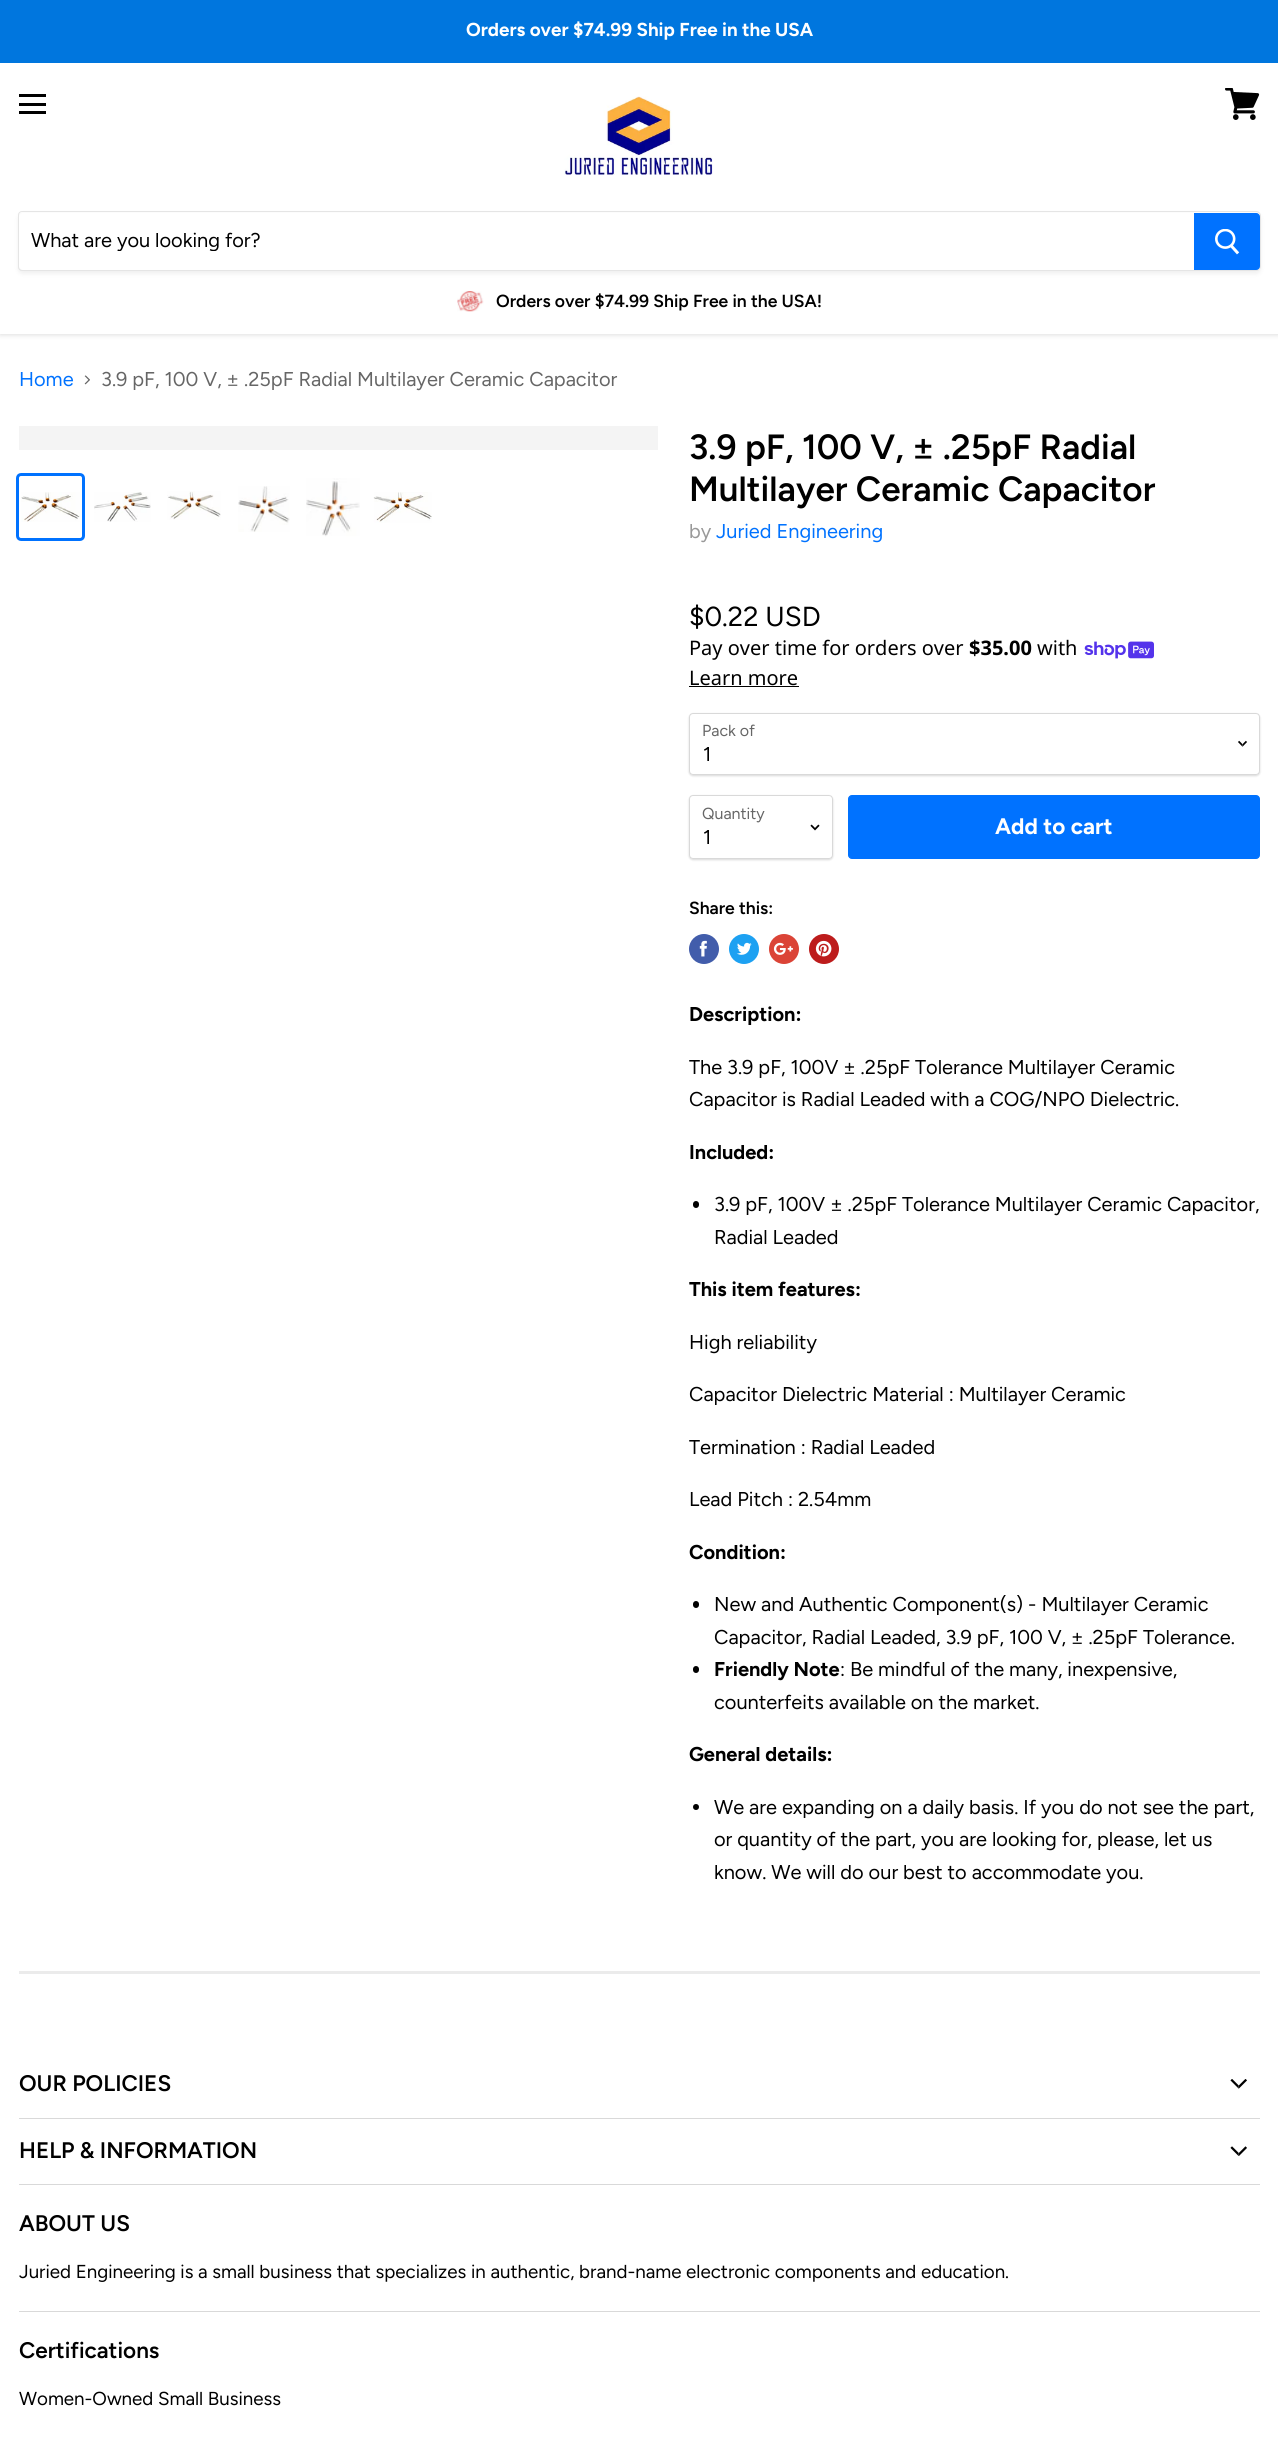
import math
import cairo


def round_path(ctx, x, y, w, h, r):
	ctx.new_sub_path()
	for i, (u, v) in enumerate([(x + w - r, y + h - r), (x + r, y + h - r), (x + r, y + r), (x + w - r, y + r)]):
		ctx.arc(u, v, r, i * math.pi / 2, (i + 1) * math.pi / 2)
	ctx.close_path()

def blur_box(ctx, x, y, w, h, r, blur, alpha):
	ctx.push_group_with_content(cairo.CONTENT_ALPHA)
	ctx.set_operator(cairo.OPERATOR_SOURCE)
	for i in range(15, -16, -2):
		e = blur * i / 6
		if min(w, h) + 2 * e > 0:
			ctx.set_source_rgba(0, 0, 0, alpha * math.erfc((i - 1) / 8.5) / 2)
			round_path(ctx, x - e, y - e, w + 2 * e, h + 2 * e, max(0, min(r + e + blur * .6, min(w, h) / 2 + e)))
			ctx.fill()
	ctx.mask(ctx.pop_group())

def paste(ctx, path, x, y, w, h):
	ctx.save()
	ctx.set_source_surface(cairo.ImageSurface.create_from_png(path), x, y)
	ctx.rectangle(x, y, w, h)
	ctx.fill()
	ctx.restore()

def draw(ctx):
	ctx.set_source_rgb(1, 1, 1)
	ctx.paint()
	ctx.set_source_rgb(0.498, 0.498, 0.498)
	blur_box(ctx, 0, 1, 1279, 334, 0, 2.5, 0.25)
	ctx.set_source_rgb(1, 1, 1)
	ctx.rectangle(0, 63, 1278, 271)
	ctx.fill()
	ctx.set_source_rgb(0, 0.463, 0.871)
	ctx.rectangle(0, 0, 1278, 63)
	ctx.fill()
	ctx.select_font_face('Figtree', cairo.FONT_SLANT_NORMAL, cairo.FONT_WEIGHT_BOLD)
	ctx.set_font_size(18.75)
	ctx.set_source_rgb(1, 1, 1)
	ctx.move_to(466, 36)
	ctx.show_text('Orders over $74.99 Ship Free in the USA')
	ctx.set_source_rgb(0, 0, 0)
	ctx.rectangle(19, 94, 27, 3)
	ctx.rectangle(19, 103, 27, 3)
	ctx.rectangle(19, 111, 27, 3)
	ctx.fill()
	paste(ctx, 'media/1.png', 1225, 88, 35, 32)
	paste(ctx, 'media/2.png', 564, 96, 149, 79)
	ctx.set_source_rgb(0.498, 0.498, 0.498)
	blur_box(ctx, 18, 214, 1243, 60, 5, 2, 0.11)
	ctx.new_path()
	ctx.move_to(22, 211.5)
	ctx.line_to(1256, 211.5)
	ctx.curve_to(1258.5, 211.5, 1260.5, 213.5, 1260.5, 216)
	ctx.line_to(1260.5, 266)
	ctx.curve_to(1260.5, 268.5, 1258.5, 270.5, 1256, 270.5)
	ctx.line_to(22, 270.5)
	ctx.curve_to(20, 270.5, 18.5, 269, 18.5, 267)
	ctx.line_to(18.5, 215)
	ctx.curve_to(18.5, 213, 20, 211.5, 22, 211.5)
	ctx.close_path()
	ctx.set_source_rgb(0.898, 0.898, 0.898)
	ctx.set_line_width(1)
	ctx.stroke()
	ctx.set_source_rgb(1, 1, 1)
	ctx.new_path()
	ctx.move_to(23, 213)
	ctx.line_to(1194, 213)
	ctx.line_to(1194, 270)
	ctx.line_to(23, 270)
	ctx.curve_to(21, 270, 19, 268, 19, 266)
	ctx.line_to(19, 217)
	ctx.curve_to(19, 215, 21, 213, 23, 213)
	ctx.close_path()
	ctx.fill()
	ctx.save()
	ctx.rectangle(31, 228, 1150, 23)
	ctx.clip()
	ctx.select_font_face('Figtree')
	ctx.set_font_size(20)
	ctx.set_source_rgb(0, 0, 0)
	ctx.move_to(31, 247)
	ctx.show_text('What are you looking for?')
	ctx.restore()
	ctx.set_source_rgb(0, 0.447, 1)
	ctx.new_path()
	ctx.move_to(1194.5, 213.5)
	ctx.line_to(1256, 213.5)
	ctx.curve_to(1258, 213.5, 1259.5, 215, 1259.5, 217)
	ctx.line_to(1259.5, 266)
	ctx.curve_to(1259.5, 268, 1258, 269.5, 1256, 269.5)
	ctx.line_to(1194.5, 269.5)
	ctx.close_path()
	ctx.fill_preserve()
	ctx.stroke()
	paste(ctx, 'media/3.png', 1215, 229, 25, 26)
	paste(ctx, 'media/4.png', 457, 291, 27, 21)
	ctx.select_font_face('Figtree SemiBold')
	ctx.set_font_size(17.5)
	ctx.set_source_rgb(0, 0, 0)
	ctx.move_to(496, 307)
	ctx.show_text('Orders over $74.99 Ship Free in the USA!')
	ctx.select_font_face('Figtree')
	ctx.set_font_size(20)
	ctx.set_source_rgb(0, 0.447, 1)
	ctx.move_to(19, 386)
	ctx.show_text('Home')
	paste(ctx, 'media/5.png', 84, 375, 6, 10)
	ctx.set_source_rgb(0.4, 0.4, 0.4)
	ctx.move_to(101, 386)
	ctx.show_text('3.9 pF, 100 V, ± .25pF Radial Multilayer Ceramic Capacitor')
	ctx.set_source_rgb(0.957, 0.957, 0.957)
	ctx.rectangle(19, 426, 639, 24)
	ctx.fill()
	round_path(ctx, 17.5, 474.5, 66, 65, 3.5)
	ctx.set_source_rgb(0, 0.447, 1)
	ctx.set_line_width(3)
	ctx.stroke()
	paste(ctx, 'media/6.png', 21, 492, 59, 30)
	paste(ctx, 'media/7.png', 94, 492, 57, 30)
	paste(ctx, 'media/8.png', 167, 491, 54, 29)
	paste(ctx, 'media/9.png', 238, 486, 52, 46)
	paste(ctx, 'media/10.png', 306, 478, 54, 59)
	paste(ctx, 'media/11.png', 373, 492, 59, 31)
	ctx.select_font_face('Figtree SemiBold')
	ctx.set_font_size(35)
	ctx.set_source_rgb(0, 0, 0)
	ctx.move_to(689, 459)
	ctx.show_text('3.9 pF, 100 V, ± .25pF Radial')
	ctx.move_to(689, 501)
	ctx.show_text('Multilayer Ceramic Capacitor')
	ctx.select_font_face('Figtree')
	ctx.set_font_size(20)
	ctx.set_source_rgb(0.6, 0.6, 0.6)
	ctx.move_to(689, 538)
	ctx.show_text('by')
	ctx.set_source_rgb(0, 0.447, 1)
	ctx.move_to(716, 538)
	ctx.show_text('Juried Engineering')
	ctx.set_font_size(27.5)
	ctx.set_source_rgb(0, 0, 0)
	ctx.move_to(689, 626)
	ctx.show_text('$0.22 USD')
	ctx.select_font_face('Noto Sans')
	ctx.set_font_size(20)
	ctx.move_to(689, 655)
	ctx.show_text('Pay over time for orders over')
	ctx.select_font_face('Noto Sans', cairo.FONT_SLANT_NORMAL, cairo.FONT_WEIGHT_BOLD)
	ctx.move_to(969, 655)
	ctx.show_text('$35.00')
	ctx.select_font_face('Noto Sans')
	ctx.move_to(1037, 655)
	ctx.show_text('with')
	paste(ctx, 'media/12.png', 1084, 641, 70, 18)
	ctx.move_to(689, 685)
	ctx.show_text('Learn more')
	ctx.rectangle(689, 686, 110, 1)
	ctx.fill()
	ctx.save()
	ctx.set_fill_rule(cairo.FILL_RULE_EVEN_ODD)
	ctx.new_path()
	ctx.move_to(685, 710)
	ctx.line_to(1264, 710)
	ctx.line_to(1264, 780)
	ctx.line_to(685, 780)
	ctx.close_path()
	ctx.move_to(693, 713)
	ctx.line_to(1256, 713)
	ctx.curve_to(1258, 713, 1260, 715, 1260, 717)
	ctx.line_to(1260, 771)
	ctx.curve_to(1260, 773, 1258, 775, 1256, 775)
	ctx.line_to(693, 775)
	ctx.curve_to(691, 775, 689, 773, 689, 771)
	ctx.line_to(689, 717)
	ctx.curve_to(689, 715, 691, 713, 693, 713)
	ctx.close_path()
	ctx.clip()
	ctx.set_source_rgb(0, 0, 0)
	blur_box(ctx, 689, 714, 571, 62, 4, 1, 0.15)
	ctx.restore()
	round_path(ctx, 689.5, 713.5, 570, 61, 3.5)
	ctx.set_source_rgba(0.498, 0.498, 0.498, 0.3)
	ctx.set_line_width(1)
	ctx.stroke()
	ctx.select_font_face('Figtree')
	ctx.set_font_size(16)
	ctx.set_source_rgb(0.4, 0.4, 0.4)
	ctx.move_to(702, 736)
	ctx.show_text('Pack of')
	paste(ctx, 'media/13.png', 1238, 740, 9, 7)
	ctx.set_font_size(20)
	ctx.set_source_rgb(0, 0, 0)
	ctx.move_to(703, 761)
	ctx.show_text('1')
	ctx.save()
	ctx.set_fill_rule(cairo.FILL_RULE_EVEN_ODD)
	ctx.new_path()
	ctx.move_to(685, 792)
	ctx.line_to(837, 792)
	ctx.line_to(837, 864)
	ctx.line_to(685, 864)
	ctx.close_path()
	ctx.move_to(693, 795)
	ctx.line_to(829, 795)
	ctx.curve_to(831, 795, 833, 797, 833, 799)
	ctx.line_to(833, 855)
	ctx.curve_to(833, 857, 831, 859, 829, 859)
	ctx.line_to(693, 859)
	ctx.curve_to(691, 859, 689, 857, 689, 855)
	ctx.line_to(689, 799)
	ctx.curve_to(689, 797, 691, 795, 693, 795)
	ctx.close_path()
	ctx.clip()
	ctx.set_source_rgb(0, 0, 0)
	blur_box(ctx, 689, 796, 144, 64, 4, 1, 0.15)
	ctx.restore()
	round_path(ctx, 689.5, 795.5, 143, 63, 3.5)
	ctx.set_source_rgba(0.498, 0.498, 0.498, 0.3)
	ctx.stroke()
	ctx.set_font_size(16)
	ctx.set_source_rgb(0.4, 0.4, 0.4)
	ctx.move_to(702, 819)
	ctx.show_text('Quantity')
	paste(ctx, 'media/14.png', 810, 824, 10, 7)
	ctx.set_font_size(20)
	ctx.set_source_rgb(0, 0, 0)
	ctx.move_to(703, 844)
	ctx.show_text('1')
	ctx.set_source_rgb(0, 0.447, 1)
	round_path(ctx, 848.5, 795.5, 411, 63, 3.5)
	ctx.fill_preserve()
	ctx.stroke()
	ctx.select_font_face('Figtree', cairo.FONT_SLANT_NORMAL, cairo.FONT_WEIGHT_BOLD)
	ctx.set_font_size(22.5)
	ctx.set_source_rgb(1, 1, 1)
	ctx.move_to(995, 834)
	ctx.show_text('Add to cart')
	ctx.select_font_face('Figtree SemiBold')
	ctx.set_font_size(17.5)
	ctx.set_source_rgb(0, 0, 0)
	ctx.move_to(689, 914)
	ctx.show_text('Share this:')
	ctx.set_source_rgb(0.259, 0.365, 0.671)
	ctx.new_path()
	ctx.arc(704, 949, 15, 0, 2 * math.pi)
	ctx.fill()
	paste(ctx, 'media/15.png', 699, 940, 8, 17)
	ctx.set_source_rgb(0.114, 0.631, 0.949)
	ctx.arc(744, 949, 15, 0, 2 * math.pi)
	ctx.fill()
	paste(ctx, 'media/16.png', 737, 942, 15, 13)
	ctx.set_source_rgb(0.859, 0.267, 0.216)
	ctx.arc(784, 949, 15, 0, 2 * math.pi)
	ctx.fill()
	paste(ctx, 'media/17.png', 773, 942, 20, 13)
	ctx.set_source_rgb(0.741, 0.11, 0.11)
	ctx.arc(824, 949, 15, 0, 2 * math.pi)
	ctx.fill()
	paste(ctx, 'media/18.png', 815, 940, 17, 17)
	ctx.select_font_face('Figtree', cairo.FONT_SLANT_NORMAL, cairo.FONT_WEIGHT_BOLD)
	ctx.set_font_size(20)
	ctx.set_source_rgb(0, 0, 0)
	ctx.move_to(689, 1021)
	ctx.show_text('Description:')
	ctx.select_font_face('Figtree')
	ctx.move_to(689, 1074)
	ctx.show_text('The 3.9 pF, 100V ± .25pF Tolerance Multilayer Ceramic')
	ctx.move_to(689, 1106)
	ctx.show_text('Capacitor is Radial Leaded with a COG/NPO Dielectric.')
	ctx.select_font_face('Figtree', cairo.FONT_SLANT_NORMAL, cairo.FONT_WEIGHT_BOLD)
	ctx.move_to(689, 1159)
	ctx.show_text('Included:')
	round_path(ctx, 693, 1201, 6, 7, 3)
	ctx.fill()
	ctx.select_font_face('Figtree')
	ctx.move_to(714, 1211)
	ctx.show_text('3.9 pF, 100V ± .25pF Tolerance Multilayer Ceramic Capacitor,')
	ctx.move_to(714, 1244)
	ctx.show_text('Radial Leaded')
	ctx.select_font_face('Figtree', cairo.FONT_SLANT_NORMAL, cairo.FONT_WEIGHT_BOLD)
	ctx.move_to(689, 1296)
	ctx.show_text('This item features:')
	ctx.select_font_face('Figtree')
	for x, y, s in [
		(689, 1349, 'High reliability'),
		(689, 1401, 'Capacitor Dielectric Material : Multilayer Ceramic'),
		(689, 1454, 'Termination : Radial Leaded'),
		(689, 1506, 'Lead Pitch : 2.54mm'),
	]:
		ctx.move_to(x, y)
		ctx.show_text(s)
	ctx.select_font_face('Figtree', cairo.FONT_SLANT_NORMAL, cairo.FONT_WEIGHT_BOLD)
	ctx.move_to(689, 1559)
	ctx.show_text('Condition:')
	round_path(ctx, 693, 1601, 6, 7, 3)
	ctx.fill()
	ctx.select_font_face('Figtree')
	ctx.move_to(714, 1611)
	ctx.show_text('New and Authentic Component(s) - Multilayer Ceramic')
	ctx.move_to(714, 1644)
	ctx.show_text('Capacitor, Radial Leaded, 3.9 pF, 100 V, ± .25pF Tolerance.')
	round_path(ctx, 693, 1666, 6, 7, 3)
	ctx.fill()
	ctx.select_font_face('Figtree', cairo.FONT_SLANT_NORMAL, cairo.FONT_WEIGHT_BOLD)
	ctx.move_to(714, 1676)
	ctx.show_text('Friendly Note')
	ctx.select_font_face('Figtree')
	ctx.move_to(840, 1676)
	ctx.show_text(': Be mindful of the many, inexpensive,')
	ctx.move_to(714, 1709)
	ctx.show_text('counterfeits available on the market.')
	ctx.select_font_face('Figtree', cairo.FONT_SLANT_NORMAL, cairo.FONT_WEIGHT_BOLD)
	ctx.move_to(689, 1761)
	ctx.show_text('General details:')
	ctx.new_path()
	ctx.arc(696, 1807, 3, 0, 2 * math.pi)
	ctx.fill()
	ctx.select_font_face('Figtree')
	for x, y, s in [
		(714, 1814, 'We are expanding on a daily basis. If you do not see the part,'),
		(714, 1846, 'or quantity of the part, you are looking for, please, let us'),
		(714, 1879, 'know. We will do our best to accommodate you.'),
	]:
		ctx.move_to(x, y)
		ctx.show_text(s)
	ctx.set_source_rgb(0.918, 0.918, 0.918)
	ctx.rectangle(19, 1971, 1241, 3)
	ctx.fill()
	ctx.set_source_rgb(0.851, 0.851, 0.851)
	ctx.rectangle(19, 2118, 1241, 1)
	ctx.fill()
	ctx.select_font_face('Figtree SemiBold')
	ctx.set_font_size(22.5)
	ctx.set_source_rgb(0, 0, 0)
	ctx.move_to(19, 2091)
	ctx.show_text('OUR POLICIES')
	paste(ctx, 'media/19.png', 1230, 2079, 17, 10)
	ctx.set_source_rgb(0.851, 0.851, 0.851)
	ctx.rectangle(19, 2184, 1241, 1)
	ctx.fill()
	ctx.set_source_rgb(0, 0, 0)
	ctx.move_to(19, 2158)
	ctx.show_text('HELP & INFORMATION')
	paste(ctx, 'media/20.png', 1230, 2146, 17, 10)
	ctx.set_source_rgb(0.851, 0.851, 0.851)
	ctx.rectangle(19, 2311, 1241, 1)
	ctx.fill()
	ctx.set_source_rgb(0, 0, 0)
	ctx.move_to(19, 2231)
	ctx.show_text('ABOUT US')
	ctx.select_font_face('Figtree')
	ctx.set_font_size(18.75)
	ctx.move_to(19, 2278)
	ctx.show_text('Juried Engineering is a small business that specializes in authentic, brand-name electronic components and education.')
	ctx.select_font_face('Figtree SemiBold')
	ctx.set_font_size(22.5)
	ctx.move_to(19, 2358)
	ctx.show_text('Certifications')
	ctx.select_font_face('Figtree')
	ctx.set_font_size(18.75)
	ctx.move_to(19, 2405)
	ctx.show_text('Women-Owned Small Business')


surface = cairo.ImageSurface(cairo.FORMAT_RGB24, 1278, 2439)
ctx = cairo.Context(surface)
options = cairo.FontOptions()
options.set_hint_metrics(cairo.HINT_METRICS_OFF)
options.set_hint_style(cairo.HINT_STYLE_NONE)
ctx.set_font_options(options)
ctx.set_miter_limit(4)
draw(ctx)
surface.write_to_png('image.png')
